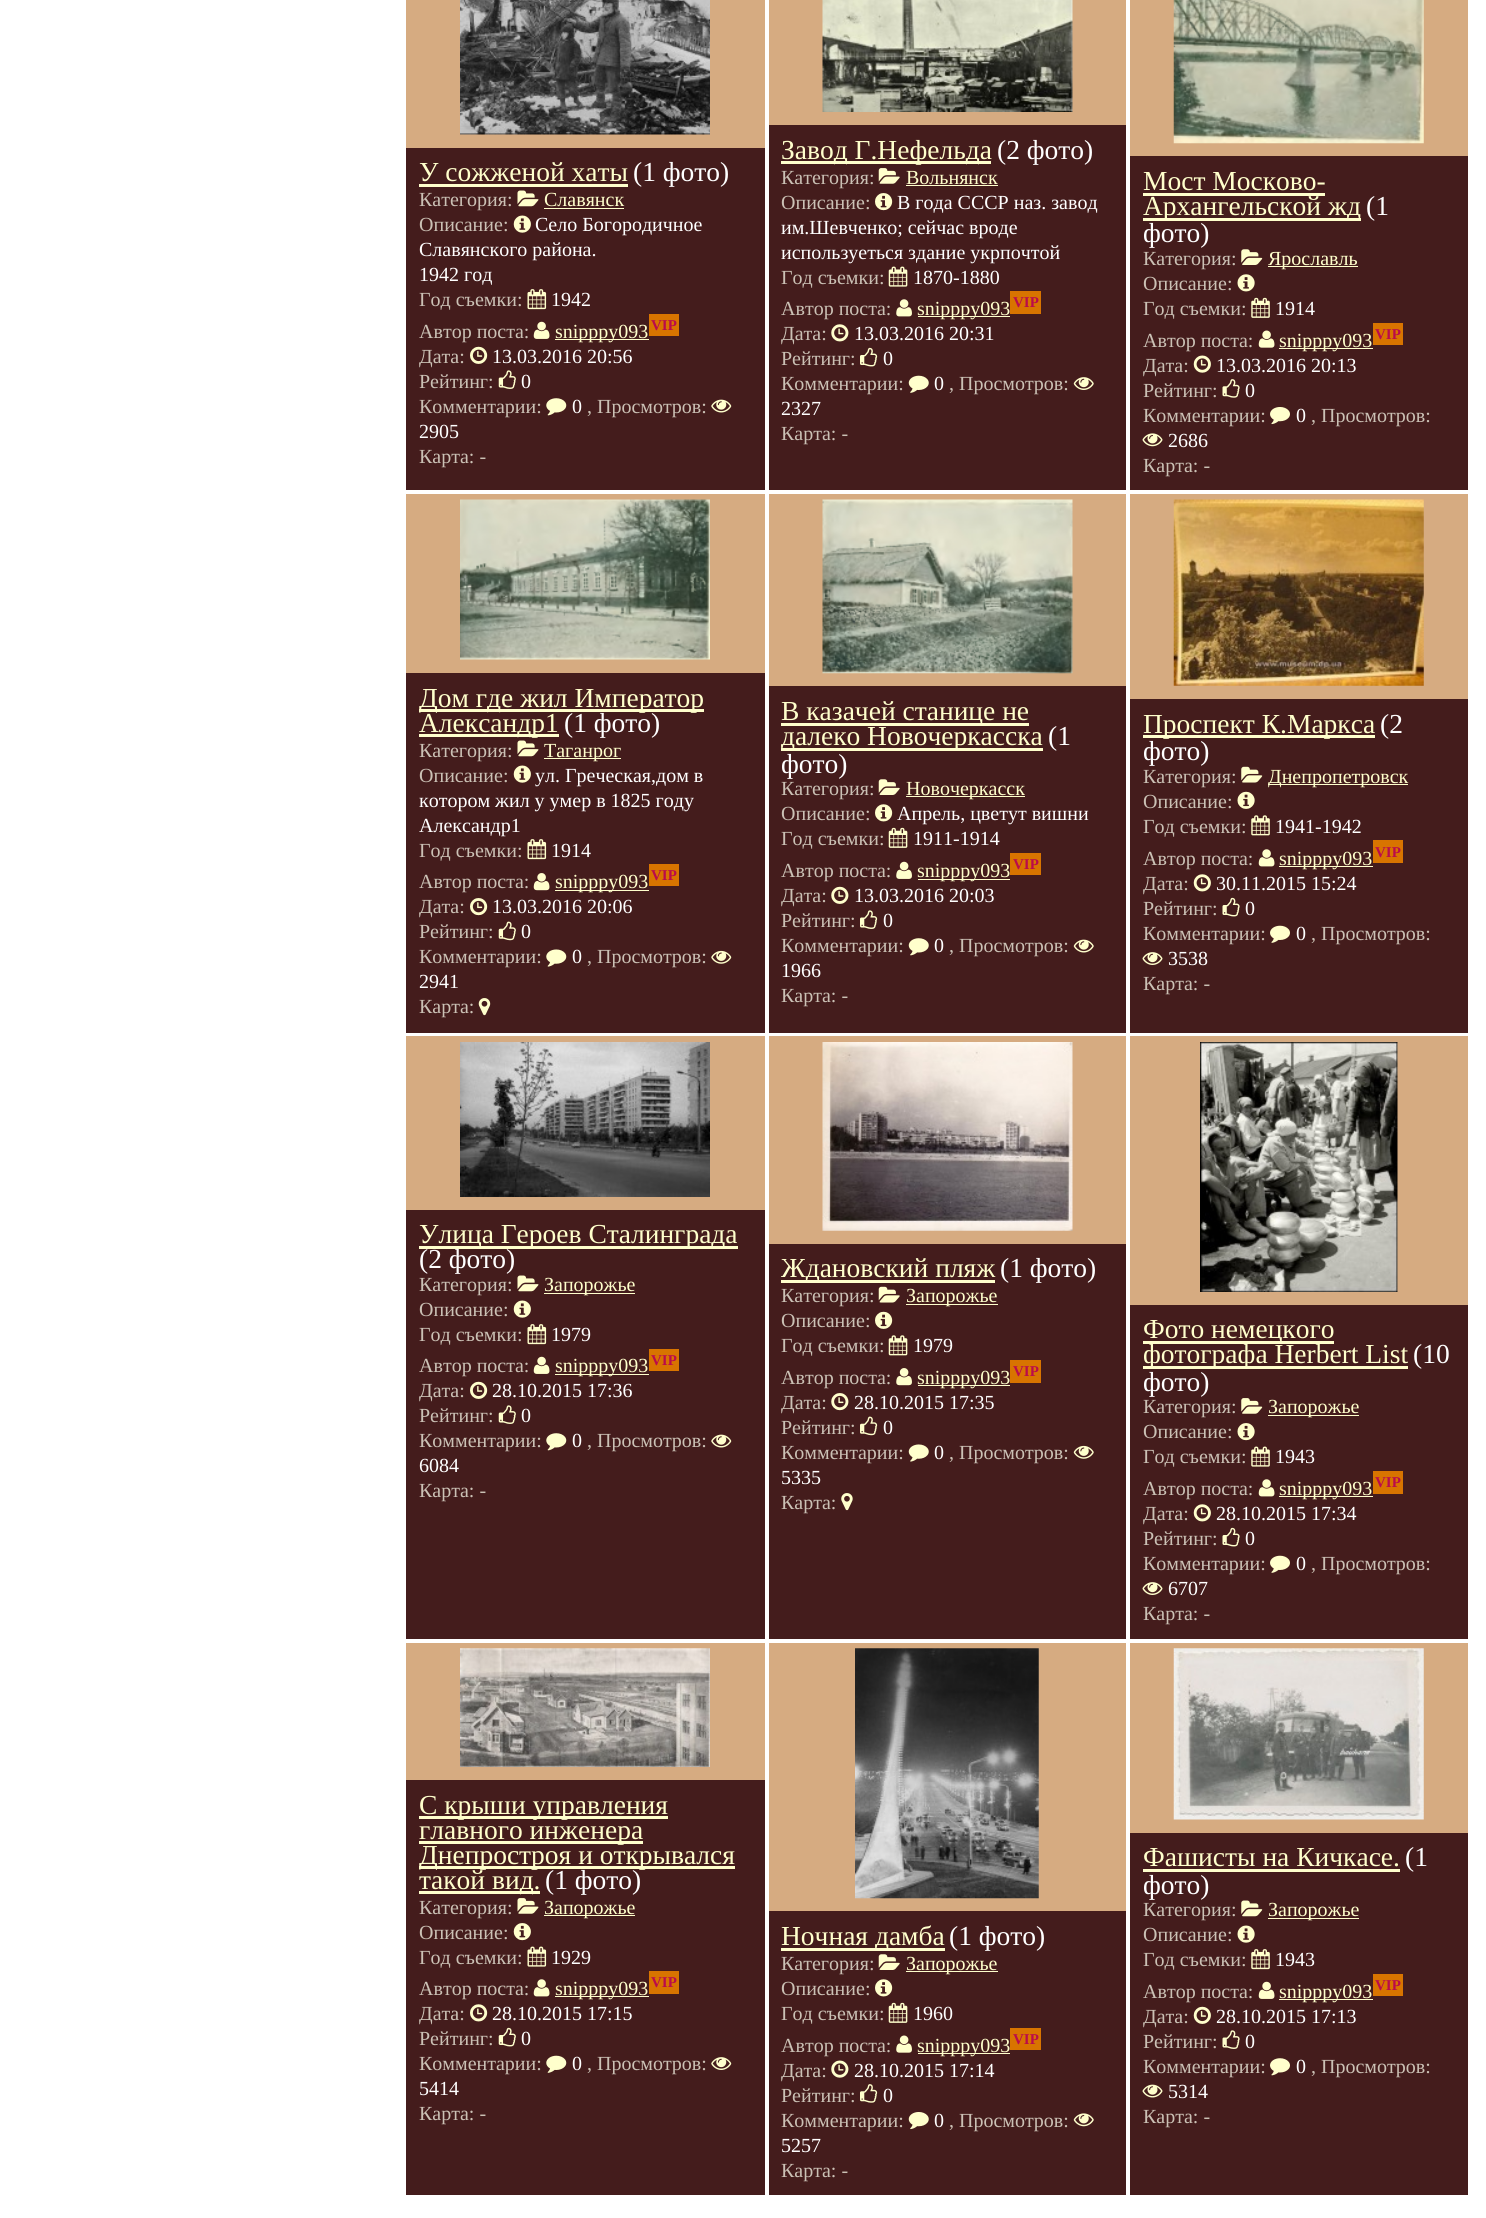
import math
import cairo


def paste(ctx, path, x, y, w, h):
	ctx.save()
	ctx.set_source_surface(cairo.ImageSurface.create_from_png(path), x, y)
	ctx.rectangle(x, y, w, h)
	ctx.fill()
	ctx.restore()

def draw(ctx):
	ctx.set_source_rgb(1, 1, 1)
	ctx.paint()
	ctx.set_source_rgb(0.267, 0.11, 0.11)
	ctx.rectangle(406, 148, 359, 342)
	ctx.fill()
	ctx.set_source_rgb(0.839, 0.671, 0.506)
	ctx.rectangle(406, 0, 359, 148)
	ctx.fill()
	paste(ctx, 'media/1.png', 460, 0, 250, 135)
	ctx.select_font_face('Liberation Serif')
	ctx.set_font_size(27.5)
	ctx.set_source_rgb(1, 1, 0.8)
	ctx.move_to(419, 181)
	ctx.show_text('У сожженой хаты')
	ctx.rectangle(419, 184, 209, 3)
	ctx.fill()
	ctx.set_source_rgb(1, 1, 1)
	ctx.move_to(633, 181)
	ctx.show_text('(1 фото)')
	ctx.set_font_size(20)
	ctx.set_source_rgb(0.796, 0.757, 0.71)
	ctx.move_to(419, 206)
	ctx.show_text('Категория:')
	paste(ctx, 'media/2.png', 517, 190, 22, 17)
	ctx.set_source_rgb(1, 1, 0.8)
	ctx.move_to(544, 206)
	ctx.show_text('Славянск')
	ctx.rectangle(544, 208, 80, 1)
	ctx.fill()
	ctx.set_source_rgb(0.796, 0.757, 0.71)
	ctx.move_to(419, 231)
	ctx.show_text('Описание:')
	paste(ctx, 'media/3.png', 513, 215, 18, 18)
	ctx.set_source_rgb(1, 1, 1)
	for x, y, s in [
		(535, 231, 'Село Богородичное'),
		(419, 256, 'Славянского района.'),
		(419, 281, '1942 год'),
	]:
		ctx.move_to(x, y)
		ctx.show_text(s)
	ctx.set_source_rgb(0.796, 0.757, 0.71)
	ctx.move_to(419, 306)
	ctx.show_text('Год съемки:')
	paste(ctx, 'media/4.png', 527, 289, 20, 21)
	ctx.set_source_rgb(1, 1, 1)
	ctx.move_to(551, 306)
	ctx.show_text('1942')
	ctx.set_source_rgb(0.796, 0.757, 0.71)
	ctx.move_to(419, 338)
	ctx.show_text('Автор поста:')
	paste(ctx, 'media/5.png', 533, 321, 17, 18)
	ctx.set_source_rgb(1, 1, 0.8)
	ctx.rectangle(555, 339, 94, 1)
	ctx.fill()
	ctx.move_to(555, 338)
	ctx.show_text('snipppy093')
	ctx.set_source_rgb(0.847, 0.455, 0)
	ctx.rectangle(649, 314, 30, 22)
	ctx.fill()
	ctx.select_font_face('Liberation Serif', cairo.FONT_SLANT_NORMAL, cairo.FONT_WEIGHT_BOLD)
	ctx.set_font_size(15)
	ctx.set_source_rgb(0.729, 0.043, 0.294)
	ctx.move_to(651, 330)
	ctx.show_text('VIP')
	ctx.select_font_face('Liberation Serif')
	ctx.set_font_size(20)
	ctx.set_source_rgb(0.796, 0.757, 0.71)
	ctx.move_to(419, 363)
	ctx.show_text('Дата:')
	paste(ctx, 'media/6.png', 470, 346, 18, 18)
	ctx.set_source_rgb(1, 1, 1)
	ctx.move_to(492, 363)
	ctx.show_text('13.03.2016 20:56')
	ctx.set_source_rgb(0.796, 0.757, 0.71)
	ctx.move_to(419, 388)
	ctx.show_text('Рейтинг:')
	paste(ctx, 'media/7.png', 498, 370, 18, 19)
	ctx.set_source_rgb(1, 1, 1)
	ctx.move_to(521, 388)
	ctx.show_text('0')
	ctx.set_source_rgb(0.796, 0.757, 0.71)
	ctx.move_to(419, 413)
	ctx.show_text('Комментарии:')
	paste(ctx, 'media/8.png', 546, 398, 21, 18)
	ctx.set_source_rgb(1, 1, 1)
	ctx.move_to(572, 413)
	ctx.show_text('0')
	ctx.set_source_rgb(0.796, 0.757, 0.71)
	ctx.move_to(587, 413)
	ctx.show_text(', Просмотров:')
	paste(ctx, 'media/9.png', 711, 399, 21, 14)
	ctx.set_source_rgb(1, 1, 1)
	ctx.move_to(419, 438)
	ctx.show_text('2905')
	ctx.set_source_rgb(0.796, 0.757, 0.71)
	ctx.move_to(419, 463)
	ctx.show_text('Карта: -')
	ctx.set_source_rgb(0.267, 0.11, 0.11)
	ctx.rectangle(769, 125, 357, 365)
	ctx.fill()
	ctx.set_source_rgb(0.839, 0.671, 0.506)
	ctx.rectangle(769, 0, 357, 125)
	ctx.fill()
	paste(ctx, 'media/10.png', 822, 0, 251, 112)
	ctx.set_source_rgb(1, 1, 0.8)
	ctx.rectangle(781, 161, 210, 3)
	ctx.fill()
	ctx.set_font_size(27.5)
	ctx.move_to(781, 159)
	ctx.show_text('Завод Г.Нефельда')
	ctx.set_source_rgb(1, 1, 1)
	ctx.move_to(997, 159)
	ctx.show_text('(2 фото)')
	ctx.set_font_size(20)
	ctx.set_source_rgb(0.796, 0.757, 0.71)
	ctx.move_to(781, 184)
	ctx.show_text('Категория:')
	paste(ctx, 'media/11.png', 878, 168, 22, 16)
	ctx.set_source_rgb(1, 1, 0.8)
	ctx.move_to(906, 184)
	ctx.show_text('Вольнянск')
	ctx.rectangle(906, 185, 92, 1)
	ctx.fill()
	ctx.set_source_rgb(0.796, 0.757, 0.71)
	ctx.move_to(781, 209)
	ctx.show_text('Описание:')
	paste(ctx, 'media/12.png', 875, 193, 18, 18)
	ctx.set_source_rgb(1, 1, 1)
	for x, y, s in [
		(897, 209, 'В года СССР наз. завод'),
		(781, 234, 'им.Шевченко; сейчас вроде'),
		(781, 259, 'используеться здание укрпочтой'),
	]:
		ctx.move_to(x, y)
		ctx.show_text(s)
	ctx.set_source_rgb(0.796, 0.757, 0.71)
	ctx.move_to(781, 284)
	ctx.show_text('Год съемки:')
	paste(ctx, 'media/13.png', 888, 266, 20, 21)
	ctx.set_source_rgb(1, 1, 1)
	ctx.move_to(913, 284)
	ctx.show_text('1870-1880')
	ctx.set_source_rgb(0.796, 0.757, 0.71)
	ctx.move_to(781, 315)
	ctx.show_text('Автор поста:')
	paste(ctx, 'media/14.png', 896, 299, 16, 18)
	ctx.set_source_rgb(1, 1, 0.8)
	ctx.rectangle(918, 316, 92, 1)
	ctx.fill()
	ctx.move_to(917, 315)
	ctx.show_text('snipppy093')
	ctx.set_source_rgb(0.847, 0.455, 0)
	ctx.rectangle(1010, 291, 31, 23)
	ctx.fill()
	ctx.select_font_face('Liberation Serif', cairo.FONT_SLANT_NORMAL, cairo.FONT_WEIGHT_BOLD)
	ctx.set_font_size(15)
	ctx.set_source_rgb(0.729, 0.043, 0.294)
	ctx.move_to(1013, 307)
	ctx.show_text('VIP')
	ctx.select_font_face('Liberation Serif')
	ctx.set_font_size(20)
	ctx.set_source_rgb(0.796, 0.757, 0.71)
	ctx.move_to(781, 340)
	ctx.show_text('Дата:')
	paste(ctx, 'media/15.png', 831, 324, 18, 18)
	ctx.set_source_rgb(1, 1, 1)
	ctx.move_to(854, 340)
	ctx.show_text('13.03.2016 20:31')
	ctx.set_source_rgb(0.796, 0.757, 0.71)
	ctx.move_to(781, 365)
	ctx.show_text('Рейтинг:')
	paste(ctx, 'media/16.png', 860, 347, 18, 20)
	ctx.set_source_rgb(1, 1, 1)
	ctx.move_to(883, 365)
	ctx.show_text('0')
	ctx.set_source_rgb(0.796, 0.757, 0.71)
	ctx.move_to(781, 390)
	ctx.show_text('Комментарии:')
	paste(ctx, 'media/17.png', 908, 375, 21, 18)
	ctx.set_source_rgb(1, 1, 1)
	ctx.move_to(934, 390)
	ctx.show_text('0')
	ctx.set_source_rgb(0.796, 0.757, 0.71)
	ctx.move_to(949, 390)
	ctx.show_text(', Просмотров:')
	paste(ctx, 'media/18.png', 1073, 377, 21, 13)
	ctx.set_source_rgb(1, 1, 1)
	ctx.move_to(781, 415)
	ctx.show_text('2327')
	ctx.set_source_rgb(0.796, 0.757, 0.71)
	ctx.move_to(781, 440)
	ctx.show_text('Карта: -')
	ctx.set_source_rgb(0.267, 0.11, 0.11)
	ctx.rectangle(1130, 156, 338, 334)
	ctx.fill()
	ctx.set_source_rgb(0.839, 0.671, 0.506)
	ctx.rectangle(1130, 0, 338, 156)
	ctx.fill()
	paste(ctx, 'media/19.png', 1173, 0, 251, 144)
	ctx.set_font_size(27.5)
	ctx.set_source_rgb(1, 1, 0.8)
	ctx.move_to(1143, 190)
	ctx.show_text('Мост Москово-')
	ctx.rectangle(1143, 193, 182, 3)
	ctx.fill()
	ctx.rectangle(1143, 218, 218, 3)
	ctx.fill()
	ctx.move_to(1143, 215)
	ctx.show_text('Архангельской жд')
	ctx.set_source_rgb(1, 1, 1)
	ctx.move_to(1366, 215)
	ctx.show_text('(1')
	ctx.move_to(1143, 242)
	ctx.show_text('фото)')
	ctx.set_font_size(20)
	ctx.set_source_rgb(0.796, 0.757, 0.71)
	ctx.move_to(1143, 265)
	ctx.show_text('Категория:')
	paste(ctx, 'media/20.png', 1241, 249, 22, 16)
	ctx.set_source_rgb(1, 1, 0.8)
	ctx.rectangle(1268, 266, 90, 1)
	ctx.fill()
	ctx.move_to(1268, 265)
	ctx.show_text('Ярославль')
	ctx.set_source_rgb(0.796, 0.757, 0.71)
	ctx.move_to(1143, 290)
	ctx.show_text('Описание:')
	paste(ctx, 'media/21.png', 1237, 274, 18, 18)
	ctx.move_to(1143, 315)
	ctx.show_text('Год съемки:')
	paste(ctx, 'media/22.png', 1251, 297, 19, 21)
	ctx.set_source_rgb(1, 1, 1)
	ctx.move_to(1275, 315)
	ctx.show_text('1914')
	ctx.set_source_rgb(0.796, 0.757, 0.71)
	ctx.move_to(1143, 347)
	ctx.show_text('Автор поста:')
	paste(ctx, 'media/23.png', 1258, 330, 17, 18)
	ctx.set_source_rgb(1, 1, 0.8)
	ctx.rectangle(1279, 348, 94, 1)
	ctx.fill()
	ctx.move_to(1279, 347)
	ctx.show_text('snipppy093')
	ctx.set_source_rgb(0.847, 0.455, 0)
	ctx.rectangle(1373, 323, 30, 22)
	ctx.fill()
	ctx.select_font_face('Liberation Serif', cairo.FONT_SLANT_NORMAL, cairo.FONT_WEIGHT_BOLD)
	ctx.set_font_size(15)
	ctx.set_source_rgb(0.729, 0.043, 0.294)
	ctx.move_to(1375, 339)
	ctx.show_text('VIP')
	ctx.select_font_face('Liberation Serif')
	ctx.set_font_size(20)
	ctx.set_source_rgb(0.796, 0.757, 0.71)
	ctx.move_to(1143, 372)
	ctx.show_text('Дата:')
	paste(ctx, 'media/24.png', 1193, 355, 18, 18)
	ctx.set_source_rgb(1, 1, 1)
	ctx.move_to(1216, 372)
	ctx.show_text('13.03.2016 20:13')
	ctx.set_source_rgb(0.796, 0.757, 0.71)
	ctx.move_to(1143, 397)
	ctx.show_text('Рейтинг:')
	paste(ctx, 'media/25.png', 1222, 379, 18, 19)
	ctx.set_source_rgb(1, 1, 1)
	ctx.move_to(1245, 397)
	ctx.show_text('0')
	ctx.set_source_rgb(0.796, 0.757, 0.71)
	ctx.move_to(1143, 422)
	ctx.show_text('Комментарии:')
	paste(ctx, 'media/26.png', 1270, 407, 20, 18)
	ctx.set_source_rgb(1, 1, 1)
	ctx.move_to(1296, 422)
	ctx.show_text('0')
	ctx.set_source_rgb(0.796, 0.757, 0.71)
	ctx.move_to(1311, 422)
	ctx.show_text(', Просмотров:')
	paste(ctx, 'media/27.png', 1142, 433, 21, 14)
	ctx.set_source_rgb(1, 1, 1)
	ctx.move_to(1168, 447)
	ctx.show_text('2686')
	ctx.set_source_rgb(0.796, 0.757, 0.71)
	ctx.move_to(1143, 472)
	ctx.show_text('Карта: -')
	ctx.set_source_rgb(0.267, 0.11, 0.11)
	ctx.rectangle(406, 673, 359, 360)
	ctx.fill()
	ctx.set_source_rgb(0.839, 0.671, 0.506)
	ctx.rectangle(406, 494, 359, 179)
	ctx.fill()
	paste(ctx, 'media/28.png', 460, 499, 250, 161)
	ctx.set_source_rgb(1, 1, 0.8)
	ctx.rectangle(419, 709, 285, 3)
	ctx.fill()
	ctx.set_font_size(27.5)
	ctx.move_to(419, 707)
	ctx.show_text('Дом где жил Император')
	ctx.rectangle(419, 734, 140, 3)
	ctx.fill()
	ctx.move_to(419, 732)
	ctx.show_text('Александр1')
	ctx.set_source_rgb(1, 1, 1)
	ctx.move_to(564, 732)
	ctx.show_text('(1 фото)')
	ctx.set_font_size(20)
	ctx.set_source_rgb(0.796, 0.757, 0.71)
	ctx.move_to(419, 757)
	ctx.show_text('Категория:')
	paste(ctx, 'media/2.png', 517, 740, 22, 17)
	ctx.set_source_rgb(1, 1, 0.8)
	ctx.rectangle(544, 758, 77, 1)
	ctx.fill()
	ctx.move_to(544, 757)
	ctx.show_text('Таганрог')
	ctx.set_source_rgb(0.796, 0.757, 0.71)
	ctx.move_to(419, 782)
	ctx.show_text('Описание:')
	paste(ctx, 'media/3.png', 513, 765, 18, 18)
	ctx.set_source_rgb(1, 1, 1)
	for x, y, s in [
		(535, 782, 'ул. Греческая,дом в'),
		(419, 807, 'котором жил у умер в 1825 году'),
		(419, 832, 'Александр1'),
	]:
		ctx.move_to(x, y)
		ctx.show_text(s)
	ctx.set_source_rgb(0.796, 0.757, 0.71)
	ctx.move_to(419, 857)
	ctx.show_text('Год съемки:')
	paste(ctx, 'media/4.png', 527, 839, 20, 21)
	ctx.set_source_rgb(1, 1, 1)
	ctx.move_to(551, 857)
	ctx.show_text('1914')
	ctx.set_source_rgb(0.796, 0.757, 0.71)
	ctx.move_to(419, 888)
	ctx.show_text('Автор поста:')
	paste(ctx, 'media/29.png', 533, 873, 17, 18)
	ctx.set_source_rgb(1, 1, 0.8)
	ctx.rectangle(555, 890, 94, 1)
	ctx.fill()
	ctx.move_to(555, 888)
	ctx.show_text('snipppy093')
	ctx.set_source_rgb(0.847, 0.455, 0)
	ctx.rectangle(649, 864, 30, 22)
	ctx.fill()
	ctx.select_font_face('Liberation Serif', cairo.FONT_SLANT_NORMAL, cairo.FONT_WEIGHT_BOLD)
	ctx.set_font_size(15)
	ctx.set_source_rgb(0.729, 0.043, 0.294)
	ctx.move_to(651, 880)
	ctx.show_text('VIP')
	ctx.select_font_face('Liberation Serif')
	ctx.set_font_size(20)
	ctx.set_source_rgb(0.796, 0.757, 0.71)
	ctx.move_to(419, 913)
	ctx.show_text('Дата:')
	paste(ctx, 'media/30.png', 470, 898, 18, 18)
	ctx.set_source_rgb(1, 1, 1)
	ctx.move_to(492, 913)
	ctx.show_text('13.03.2016 20:06')
	ctx.set_source_rgb(0.796, 0.757, 0.71)
	ctx.move_to(419, 938)
	ctx.show_text('Рейтинг:')
	paste(ctx, 'media/31.png', 498, 921, 18, 20)
	ctx.set_source_rgb(1, 1, 1)
	ctx.move_to(521, 938)
	ctx.show_text('0')
	ctx.set_source_rgb(0.796, 0.757, 0.71)
	ctx.move_to(419, 963)
	ctx.show_text('Комментарии:')
	paste(ctx, 'media/32.png', 546, 949, 21, 18)
	ctx.set_source_rgb(1, 1, 1)
	ctx.move_to(572, 963)
	ctx.show_text('0')
	ctx.set_source_rgb(0.796, 0.757, 0.71)
	ctx.move_to(587, 963)
	ctx.show_text(', Просмотров:')
	paste(ctx, 'media/33.png', 711, 950, 21, 14)
	ctx.set_source_rgb(1, 1, 1)
	ctx.move_to(419, 988)
	ctx.show_text('2941')
	ctx.set_source_rgb(0.796, 0.757, 0.71)
	ctx.move_to(419, 1013)
	ctx.show_text('Карта:')
	paste(ctx, 'media/34.png', 478, 998, 13, 18)
	ctx.set_source_rgb(0.267, 0.11, 0.11)
	ctx.rectangle(769, 686, 357, 347)
	ctx.fill()
	ctx.set_source_rgb(0.839, 0.671, 0.506)
	ctx.rectangle(769, 494, 357, 192)
	ctx.fill()
	paste(ctx, 'media/35.png', 822, 499, 251, 175)
	ctx.set_source_rgb(1, 1, 0.8)
	ctx.rectangle(781, 723, 248, 3)
	ctx.fill()
	ctx.set_font_size(27.5)
	ctx.move_to(781, 720)
	ctx.show_text('В казачей станице не')
	ctx.rectangle(781, 748, 262, 3)
	ctx.fill()
	ctx.move_to(781, 745)
	ctx.show_text('далеко Новочеркасска')
	ctx.set_source_rgb(1, 1, 1)
	ctx.move_to(1048, 745)
	ctx.show_text('(1')
	ctx.move_to(781, 773)
	ctx.show_text('фото)')
	ctx.set_font_size(20)
	ctx.set_source_rgb(0.796, 0.757, 0.71)
	ctx.move_to(781, 795)
	ctx.show_text('Категория:')
	paste(ctx, 'media/36.png', 878, 779, 22, 16)
	ctx.set_source_rgb(1, 1, 0.8)
	ctx.rectangle(906, 796, 119, 1)
	ctx.fill()
	ctx.move_to(906, 795)
	ctx.show_text('Новочеркасск')
	ctx.set_source_rgb(0.796, 0.757, 0.71)
	ctx.move_to(781, 820)
	ctx.show_text('Описание:')
	paste(ctx, 'media/37.png', 875, 804, 18, 18)
	ctx.set_source_rgb(1, 1, 1)
	ctx.move_to(897, 820)
	ctx.show_text('Апрель, цветут вишни')
	ctx.set_source_rgb(0.796, 0.757, 0.71)
	ctx.move_to(781, 845)
	ctx.show_text('Год съемки:')
	paste(ctx, 'media/38.png', 888, 827, 20, 21)
	ctx.set_source_rgb(1, 1, 1)
	ctx.move_to(913, 845)
	ctx.show_text('1911-1914')
	ctx.set_source_rgb(0.796, 0.757, 0.71)
	ctx.move_to(781, 877)
	ctx.show_text('Автор поста:')
	paste(ctx, 'media/39.png', 896, 861, 16, 18)
	ctx.set_source_rgb(1, 1, 0.8)
	ctx.rectangle(918, 879, 92, 1)
	ctx.fill()
	ctx.move_to(917, 877)
	ctx.show_text('snipppy093')
	ctx.set_source_rgb(0.847, 0.455, 0)
	ctx.rectangle(1010, 853, 31, 22)
	ctx.fill()
	ctx.select_font_face('Liberation Serif', cairo.FONT_SLANT_NORMAL, cairo.FONT_WEIGHT_BOLD)
	ctx.set_font_size(15)
	ctx.set_source_rgb(0.729, 0.043, 0.294)
	ctx.move_to(1013, 869)
	ctx.show_text('VIP')
	ctx.select_font_face('Liberation Serif')
	ctx.set_font_size(20)
	ctx.set_source_rgb(0.796, 0.757, 0.71)
	ctx.move_to(781, 902)
	ctx.show_text('Дата:')
	paste(ctx, 'media/40.png', 831, 886, 18, 18)
	ctx.set_source_rgb(1, 1, 1)
	ctx.move_to(854, 902)
	ctx.show_text('13.03.2016 20:03')
	ctx.set_source_rgb(0.796, 0.757, 0.71)
	ctx.move_to(781, 927)
	ctx.show_text('Рейтинг:')
	paste(ctx, 'media/41.png', 860, 910, 18, 19)
	ctx.set_source_rgb(1, 1, 1)
	ctx.move_to(883, 927)
	ctx.show_text('0')
	ctx.set_source_rgb(0.796, 0.757, 0.71)
	ctx.move_to(781, 952)
	ctx.show_text('Комментарии:')
	paste(ctx, 'media/42.png', 908, 938, 21, 18)
	ctx.set_source_rgb(1, 1, 1)
	ctx.move_to(934, 952)
	ctx.show_text('0')
	ctx.set_source_rgb(0.796, 0.757, 0.71)
	ctx.move_to(949, 952)
	ctx.show_text(', Просмотров:')
	paste(ctx, 'media/43.png', 1073, 939, 21, 14)
	ctx.set_source_rgb(1, 1, 1)
	ctx.move_to(781, 977)
	ctx.show_text('1966')
	ctx.set_source_rgb(0.796, 0.757, 0.71)
	ctx.move_to(781, 1002)
	ctx.show_text('Карта: -')
	ctx.set_source_rgb(0.267, 0.11, 0.11)
	ctx.rectangle(1130, 699, 338, 334)
	ctx.fill()
	ctx.set_source_rgb(0.839, 0.671, 0.506)
	ctx.rectangle(1130, 494, 338, 205)
	ctx.fill()
	paste(ctx, 'media/44.png', 1173, 499, 251, 187)
	ctx.set_source_rgb(1, 1, 0.8)
	ctx.rectangle(1143, 735, 232, 3)
	ctx.fill()
	ctx.set_font_size(27.5)
	ctx.move_to(1143, 733)
	ctx.show_text('Проспект К.Маркса')
	ctx.set_source_rgb(1, 1, 1)
	ctx.move_to(1380, 733)
	ctx.show_text('(2')
	ctx.move_to(1143, 760)
	ctx.show_text('фото)')
	ctx.set_font_size(20)
	ctx.set_source_rgb(0.796, 0.757, 0.71)
	ctx.move_to(1143, 783)
	ctx.show_text('Категория:')
	paste(ctx, 'media/45.png', 1241, 766, 22, 17)
	ctx.set_source_rgb(1, 1, 0.8)
	ctx.rectangle(1268, 784, 140, 1)
	ctx.fill()
	ctx.move_to(1268, 783)
	ctx.show_text('Днепропетровск')
	ctx.set_source_rgb(0.796, 0.757, 0.71)
	ctx.move_to(1143, 808)
	ctx.show_text('Описание:')
	paste(ctx, 'media/46.png', 1237, 791, 18, 18)
	ctx.move_to(1143, 833)
	ctx.show_text('Год съемки:')
	paste(ctx, 'media/47.png', 1251, 815, 19, 21)
	ctx.set_source_rgb(1, 1, 1)
	ctx.move_to(1275, 833)
	ctx.show_text('1941-1942')
	ctx.set_source_rgb(0.796, 0.757, 0.71)
	ctx.move_to(1143, 865)
	ctx.show_text('Автор поста:')
	paste(ctx, 'media/48.png', 1258, 849, 17, 18)
	ctx.set_source_rgb(1, 1, 0.8)
	ctx.rectangle(1279, 866, 94, 1)
	ctx.fill()
	ctx.move_to(1279, 865)
	ctx.show_text('snipppy093')
	ctx.set_source_rgb(0.847, 0.455, 0)
	ctx.rectangle(1373, 840, 30, 23)
	ctx.fill()
	ctx.select_font_face('Liberation Serif', cairo.FONT_SLANT_NORMAL, cairo.FONT_WEIGHT_BOLD)
	ctx.set_font_size(15)
	ctx.set_source_rgb(0.729, 0.043, 0.294)
	ctx.move_to(1375, 857)
	ctx.show_text('VIP')
	ctx.select_font_face('Liberation Serif')
	ctx.set_font_size(20)
	ctx.set_source_rgb(0.796, 0.757, 0.71)
	ctx.move_to(1143, 890)
	ctx.show_text('Дата:')
	paste(ctx, 'media/49.png', 1193, 874, 18, 18)
	ctx.set_source_rgb(1, 1, 1)
	ctx.move_to(1216, 890)
	ctx.show_text('30.11.2015 15:24')
	ctx.set_source_rgb(0.796, 0.757, 0.71)
	ctx.move_to(1143, 915)
	ctx.show_text('Рейтинг:')
	paste(ctx, 'media/50.png', 1222, 897, 18, 20)
	ctx.set_source_rgb(1, 1, 1)
	ctx.move_to(1245, 915)
	ctx.show_text('0')
	ctx.set_source_rgb(0.796, 0.757, 0.71)
	ctx.move_to(1143, 940)
	ctx.show_text('Комментарии:')
	paste(ctx, 'media/51.png', 1270, 925, 20, 18)
	ctx.set_source_rgb(1, 1, 1)
	ctx.move_to(1296, 940)
	ctx.show_text('0')
	ctx.set_source_rgb(0.796, 0.757, 0.71)
	ctx.move_to(1311, 940)
	ctx.show_text(', Просмотров:')
	paste(ctx, 'media/52.png', 1142, 952, 21, 13)
	ctx.set_source_rgb(1, 1, 1)
	ctx.move_to(1168, 965)
	ctx.show_text('3538')
	ctx.set_source_rgb(0.796, 0.757, 0.71)
	ctx.move_to(1143, 990)
	ctx.show_text('Карта: -')
	ctx.set_source_rgb(0.267, 0.11, 0.11)
	ctx.rectangle(406, 1210, 359, 429)
	ctx.fill()
	ctx.set_source_rgb(0.839, 0.671, 0.506)
	ctx.rectangle(406, 1036, 359, 174)
	ctx.fill()
	paste(ctx, 'media/53.png', 460, 1042, 250, 155)
	ctx.set_source_rgb(1, 1, 0.8)
	ctx.rectangle(419, 1246, 319, 3)
	ctx.fill()
	ctx.set_font_size(27.5)
	ctx.move_to(419, 1243)
	ctx.show_text('Улица Героев Сталинграда')
	ctx.set_source_rgb(1, 1, 1)
	ctx.move_to(419, 1268)
	ctx.show_text('(2 фото)')
	ctx.set_font_size(20)
	ctx.set_source_rgb(0.796, 0.757, 0.71)
	ctx.move_to(419, 1291)
	ctx.show_text('Категория:')
	paste(ctx, 'media/2.png', 517, 1275, 22, 17)
	ctx.set_source_rgb(1, 1, 0.8)
	ctx.rectangle(544, 1293, 91, 1)
	ctx.fill()
	ctx.move_to(544, 1291)
	ctx.show_text('Запорожье')
	ctx.set_source_rgb(0.796, 0.757, 0.71)
	ctx.move_to(419, 1316)
	ctx.show_text('Описание:')
	paste(ctx, 'media/3.png', 513, 1300, 18, 18)
	ctx.move_to(419, 1341)
	ctx.show_text('Год съемки:')
	paste(ctx, 'media/4.png', 527, 1324, 20, 21)
	ctx.set_source_rgb(1, 1, 1)
	ctx.move_to(551, 1341)
	ctx.show_text('1979')
	ctx.set_source_rgb(0.796, 0.757, 0.71)
	ctx.move_to(419, 1372)
	ctx.show_text('Автор поста:')
	paste(ctx, 'media/5.png', 533, 1356, 17, 18)
	ctx.set_source_rgb(1, 1, 0.8)
	ctx.rectangle(555, 1374, 94, 1)
	ctx.fill()
	ctx.move_to(555, 1372)
	ctx.show_text('snipppy093')
	ctx.set_source_rgb(0.847, 0.455, 0)
	ctx.rectangle(649, 1349, 30, 22)
	ctx.fill()
	ctx.select_font_face('Liberation Serif', cairo.FONT_SLANT_NORMAL, cairo.FONT_WEIGHT_BOLD)
	ctx.set_font_size(15)
	ctx.set_source_rgb(0.729, 0.043, 0.294)
	ctx.move_to(651, 1365)
	ctx.show_text('VIP')
	ctx.select_font_face('Liberation Serif')
	ctx.set_font_size(20)
	ctx.set_source_rgb(0.796, 0.757, 0.71)
	ctx.move_to(419, 1397)
	ctx.show_text('Дата:')
	paste(ctx, 'media/6.png', 470, 1381, 18, 18)
	ctx.set_source_rgb(1, 1, 1)
	ctx.move_to(492, 1397)
	ctx.show_text('28.10.2015 17:36')
	ctx.set_source_rgb(0.796, 0.757, 0.71)
	ctx.move_to(419, 1422)
	ctx.show_text('Рейтинг:')
	paste(ctx, 'media/7.png', 498, 1405, 18, 19)
	ctx.set_source_rgb(1, 1, 1)
	ctx.move_to(521, 1422)
	ctx.show_text('0')
	ctx.set_source_rgb(0.796, 0.757, 0.71)
	ctx.move_to(419, 1447)
	ctx.show_text('Комментарии:')
	paste(ctx, 'media/8.png', 546, 1433, 21, 18)
	ctx.set_source_rgb(1, 1, 1)
	ctx.move_to(572, 1447)
	ctx.show_text('0')
	ctx.set_source_rgb(0.796, 0.757, 0.71)
	ctx.move_to(587, 1447)
	ctx.show_text(', Просмотров:')
	paste(ctx, 'media/9.png', 711, 1434, 21, 14)
	ctx.set_source_rgb(1, 1, 1)
	ctx.move_to(419, 1472)
	ctx.show_text('6084')
	ctx.set_source_rgb(0.796, 0.757, 0.71)
	ctx.move_to(419, 1497)
	ctx.show_text('Карта: -')
	ctx.set_source_rgb(0.267, 0.11, 0.11)
	ctx.rectangle(769, 1244, 357, 395)
	ctx.fill()
	ctx.set_source_rgb(0.839, 0.671, 0.506)
	ctx.rectangle(769, 1036, 357, 208)
	ctx.fill()
	paste(ctx, 'media/54.png', 822, 1042, 251, 189)
	ctx.set_source_rgb(1, 1, 0.8)
	ctx.rectangle(781, 1280, 214, 3)
	ctx.fill()
	ctx.set_font_size(27.5)
	ctx.move_to(781, 1277)
	ctx.show_text('Ждановский пляж')
	ctx.set_source_rgb(1, 1, 1)
	ctx.move_to(1000, 1277)
	ctx.show_text('(1 фото)')
	ctx.set_font_size(20)
	ctx.set_source_rgb(0.796, 0.757, 0.71)
	ctx.move_to(781, 1302)
	ctx.show_text('Категория:')
	paste(ctx, 'media/55.png', 878, 1286, 22, 17)
	ctx.set_source_rgb(1, 1, 0.8)
	ctx.rectangle(906, 1304, 92, 1)
	ctx.fill()
	ctx.move_to(906, 1302)
	ctx.show_text('Запорожье')
	ctx.set_source_rgb(0.796, 0.757, 0.71)
	ctx.move_to(781, 1327)
	ctx.show_text('Описание:')
	paste(ctx, 'media/56.png', 875, 1311, 18, 18)
	ctx.move_to(781, 1352)
	ctx.show_text('Год съемки:')
	paste(ctx, 'media/57.png', 888, 1335, 20, 21)
	ctx.set_source_rgb(1, 1, 1)
	ctx.move_to(913, 1352)
	ctx.show_text('1979')
	ctx.set_source_rgb(0.796, 0.757, 0.71)
	ctx.move_to(781, 1384)
	ctx.show_text('Автор поста:')
	paste(ctx, 'media/58.png', 896, 1368, 16, 18)
	ctx.set_source_rgb(1, 1, 0.8)
	ctx.rectangle(918, 1385, 92, 1)
	ctx.fill()
	ctx.move_to(917, 1384)
	ctx.show_text('snipppy093')
	ctx.set_source_rgb(0.847, 0.455, 0)
	ctx.rectangle(1010, 1360, 31, 23)
	ctx.fill()
	ctx.select_font_face('Liberation Serif', cairo.FONT_SLANT_NORMAL, cairo.FONT_WEIGHT_BOLD)
	ctx.set_font_size(15)
	ctx.set_source_rgb(0.729, 0.043, 0.294)
	ctx.move_to(1013, 1376)
	ctx.show_text('VIP')
	ctx.select_font_face('Liberation Serif')
	ctx.set_font_size(20)
	ctx.set_source_rgb(0.796, 0.757, 0.71)
	ctx.move_to(781, 1409)
	ctx.show_text('Дата:')
	paste(ctx, 'media/59.png', 831, 1393, 18, 18)
	ctx.set_source_rgb(1, 1, 1)
	ctx.move_to(854, 1409)
	ctx.show_text('28.10.2015 17:35')
	ctx.set_source_rgb(0.796, 0.757, 0.71)
	ctx.move_to(781, 1434)
	ctx.show_text('Рейтинг:')
	paste(ctx, 'media/60.png', 860, 1416, 18, 20)
	ctx.set_source_rgb(1, 1, 1)
	ctx.move_to(883, 1434)
	ctx.show_text('0')
	ctx.set_source_rgb(0.796, 0.757, 0.71)
	ctx.move_to(781, 1459)
	ctx.show_text('Комментарии:')
	paste(ctx, 'media/61.png', 908, 1444, 21, 18)
	ctx.set_source_rgb(1, 1, 1)
	ctx.move_to(934, 1459)
	ctx.show_text('0')
	ctx.set_source_rgb(0.796, 0.757, 0.71)
	ctx.move_to(949, 1459)
	ctx.show_text(', Просмотров:')
	paste(ctx, 'media/62.png', 1073, 1445, 21, 14)
	ctx.set_source_rgb(1, 1, 1)
	ctx.move_to(781, 1484)
	ctx.show_text('5335')
	ctx.set_source_rgb(0.796, 0.757, 0.71)
	ctx.move_to(781, 1509)
	ctx.show_text('Карта:')
	paste(ctx, 'media/63.png', 841, 1493, 12, 18)
	ctx.set_source_rgb(0.267, 0.11, 0.11)
	ctx.rectangle(1130, 1305, 338, 334)
	ctx.fill()
	ctx.set_source_rgb(0.839, 0.671, 0.506)
	ctx.rectangle(1130, 1036, 338, 269)
	ctx.fill()
	paste(ctx, 'media/64.png', 1200, 1042, 198, 250)
	ctx.set_source_rgb(1, 1, 0.8)
	ctx.rectangle(1143, 1341, 191, 3)
	ctx.fill()
	ctx.set_font_size(27.5)
	ctx.move_to(1143, 1338)
	ctx.show_text('Фото немецкого')
	ctx.rectangle(1143, 1366, 265, 3)
	ctx.fill()
	ctx.move_to(1143, 1363)
	ctx.show_text('фотографа Herbert List')
	ctx.set_source_rgb(1, 1, 1)
	ctx.move_to(1413, 1363)
	ctx.show_text('(10')
	ctx.move_to(1143, 1391)
	ctx.show_text('фото)')
	ctx.set_font_size(20)
	ctx.set_source_rgb(0.796, 0.757, 0.71)
	ctx.move_to(1143, 1413)
	ctx.show_text('Категория:')
	paste(ctx, 'media/65.png', 1241, 1398, 22, 16)
	ctx.set_source_rgb(1, 1, 0.8)
	ctx.rectangle(1268, 1415, 91, 1)
	ctx.fill()
	ctx.move_to(1268, 1413)
	ctx.show_text('Запорожье')
	ctx.set_source_rgb(0.796, 0.757, 0.71)
	ctx.move_to(1143, 1438)
	ctx.show_text('Описание:')
	paste(ctx, 'media/66.png', 1237, 1423, 18, 18)
	ctx.move_to(1143, 1463)
	ctx.show_text('Год съемки:')
	paste(ctx, 'media/67.png', 1251, 1446, 19, 21)
	ctx.set_source_rgb(1, 1, 1)
	ctx.move_to(1275, 1463)
	ctx.show_text('1943')
	ctx.set_source_rgb(0.796, 0.757, 0.71)
	ctx.move_to(1143, 1495)
	ctx.show_text('Автор поста:')
	paste(ctx, 'media/48.png', 1258, 1479, 17, 18)
	ctx.set_source_rgb(1, 1, 0.8)
	ctx.rectangle(1279, 1496, 94, 1)
	ctx.fill()
	ctx.move_to(1279, 1495)
	ctx.show_text('snipppy093')
	ctx.set_source_rgb(0.847, 0.455, 0)
	ctx.rectangle(1373, 1471, 30, 23)
	ctx.fill()
	ctx.select_font_face('Liberation Serif', cairo.FONT_SLANT_NORMAL, cairo.FONT_WEIGHT_BOLD)
	ctx.set_font_size(15)
	ctx.set_source_rgb(0.729, 0.043, 0.294)
	ctx.move_to(1375, 1487)
	ctx.show_text('VIP')
	ctx.select_font_face('Liberation Serif')
	ctx.set_font_size(20)
	ctx.set_source_rgb(0.796, 0.757, 0.71)
	ctx.move_to(1143, 1520)
	ctx.show_text('Дата:')
	paste(ctx, 'media/49.png', 1193, 1504, 18, 18)
	ctx.set_source_rgb(1, 1, 1)
	ctx.move_to(1216, 1520)
	ctx.show_text('28.10.2015 17:34')
	ctx.set_source_rgb(0.796, 0.757, 0.71)
	ctx.move_to(1143, 1545)
	ctx.show_text('Рейтинг:')
	paste(ctx, 'media/50.png', 1222, 1527, 18, 20)
	ctx.set_source_rgb(1, 1, 1)
	ctx.move_to(1245, 1545)
	ctx.show_text('0')
	ctx.set_source_rgb(0.796, 0.757, 0.71)
	ctx.move_to(1143, 1570)
	ctx.show_text('Комментарии:')
	paste(ctx, 'media/51.png', 1270, 1555, 20, 18)
	ctx.set_source_rgb(1, 1, 1)
	ctx.move_to(1296, 1570)
	ctx.show_text('0')
	ctx.set_source_rgb(0.796, 0.757, 0.71)
	ctx.move_to(1311, 1570)
	ctx.show_text(', Просмотров:')
	paste(ctx, 'media/52.png', 1142, 1582, 21, 13)
	ctx.set_source_rgb(1, 1, 1)
	ctx.move_to(1168, 1595)
	ctx.show_text('6707')
	ctx.set_source_rgb(0.796, 0.757, 0.71)
	ctx.move_to(1143, 1620)
	ctx.show_text('Карта: -')
	ctx.set_source_rgb(0.267, 0.11, 0.11)
	ctx.rectangle(406, 1780, 359, 415)
	ctx.fill()
	ctx.set_source_rgb(0.839, 0.671, 0.506)
	ctx.rectangle(406, 1643, 359, 137)
	ctx.fill()
	paste(ctx, 'media/68.png', 460, 1648, 250, 119)
	ctx.set_source_rgb(1, 1, 0.8)
	ctx.rectangle(419, 1816, 249, 3)
	ctx.fill()
	ctx.set_font_size(27.5)
	ctx.move_to(419, 1814)
	ctx.show_text('С крыши управления')
	ctx.rectangle(419, 1841, 224, 3)
	ctx.fill()
	ctx.move_to(419, 1839)
	ctx.show_text('главного инженера')
	ctx.rectangle(419, 1866, 316, 3)
	ctx.fill()
	ctx.move_to(419, 1864)
	ctx.show_text('Днепростроя и открывался')
	ctx.rectangle(419, 1891, 121, 3)
	ctx.fill()
	ctx.move_to(419, 1889)
	ctx.show_text('такой вид.')
	ctx.set_source_rgb(1, 1, 1)
	ctx.move_to(545, 1889)
	ctx.show_text('(1 фото)')
	ctx.set_font_size(20)
	ctx.set_source_rgb(0.796, 0.757, 0.71)
	ctx.move_to(419, 1914)
	ctx.show_text('Категория:')
	paste(ctx, 'media/69.png', 517, 1898, 22, 16)
	ctx.set_source_rgb(1, 1, 0.8)
	ctx.rectangle(544, 1915, 91, 1)
	ctx.fill()
	ctx.move_to(544, 1914)
	ctx.show_text('Запорожье')
	ctx.set_source_rgb(0.796, 0.757, 0.71)
	ctx.move_to(419, 1939)
	ctx.show_text('Описание:')
	paste(ctx, 'media/70.png', 513, 1923, 18, 18)
	ctx.move_to(419, 1964)
	ctx.show_text('Год съемки:')
	paste(ctx, 'media/71.png', 527, 1946, 20, 21)
	ctx.set_source_rgb(1, 1, 1)
	ctx.move_to(551, 1964)
	ctx.show_text('1929')
	ctx.set_source_rgb(0.796, 0.757, 0.71)
	ctx.move_to(419, 1995)
	ctx.show_text('Автор поста:')
	paste(ctx, 'media/48.png', 533, 1979, 17, 18)
	ctx.set_source_rgb(1, 1, 0.8)
	ctx.rectangle(555, 1996, 94, 1)
	ctx.fill()
	ctx.move_to(555, 1995)
	ctx.show_text('snipppy093')
	ctx.set_source_rgb(0.847, 0.455, 0)
	ctx.rectangle(649, 1971, 30, 23)
	ctx.fill()
	ctx.select_font_face('Liberation Serif', cairo.FONT_SLANT_NORMAL, cairo.FONT_WEIGHT_BOLD)
	ctx.set_font_size(15)
	ctx.set_source_rgb(0.729, 0.043, 0.294)
	ctx.move_to(651, 1987)
	ctx.show_text('VIP')
	ctx.select_font_face('Liberation Serif')
	ctx.set_font_size(20)
	ctx.set_source_rgb(0.796, 0.757, 0.71)
	ctx.move_to(419, 2020)
	ctx.show_text('Дата:')
	paste(ctx, 'media/72.png', 470, 2004, 18, 18)
	ctx.set_source_rgb(1, 1, 1)
	ctx.move_to(492, 2020)
	ctx.show_text('28.10.2015 17:15')
	ctx.set_source_rgb(0.796, 0.757, 0.71)
	ctx.move_to(419, 2045)
	ctx.show_text('Рейтинг:')
	paste(ctx, 'media/73.png', 498, 2027, 18, 20)
	ctx.set_source_rgb(1, 1, 1)
	ctx.move_to(521, 2045)
	ctx.show_text('0')
	ctx.set_source_rgb(0.796, 0.757, 0.71)
	ctx.move_to(419, 2070)
	ctx.show_text('Комментарии:')
	paste(ctx, 'media/74.png', 546, 2055, 21, 18)
	ctx.set_source_rgb(1, 1, 1)
	ctx.move_to(572, 2070)
	ctx.show_text('0')
	ctx.set_source_rgb(0.796, 0.757, 0.71)
	ctx.move_to(587, 2070)
	ctx.show_text(', Просмотров:')
	paste(ctx, 'media/75.png', 711, 2057, 21, 13)
	ctx.set_source_rgb(1, 1, 1)
	ctx.move_to(419, 2095)
	ctx.show_text('5414')
	ctx.set_source_rgb(0.796, 0.757, 0.71)
	ctx.move_to(419, 2120)
	ctx.show_text('Карта: -')
	ctx.set_source_rgb(0.267, 0.11, 0.11)
	ctx.rectangle(769, 1911, 357, 284)
	ctx.fill()
	ctx.set_source_rgb(0.839, 0.671, 0.506)
	ctx.rectangle(769, 1643, 357, 268)
	ctx.fill()
	paste(ctx, 'media/76.png', 855, 1648, 184, 251)
	ctx.set_source_rgb(1, 1, 0.8)
	ctx.rectangle(781, 1948, 164, 3)
	ctx.fill()
	ctx.set_font_size(27.5)
	ctx.move_to(781, 1945)
	ctx.show_text('Ночная дамба')
	ctx.set_source_rgb(1, 1, 1)
	ctx.move_to(949, 1945)
	ctx.show_text('(1 фото)')
	ctx.set_font_size(20)
	ctx.set_source_rgb(0.796, 0.757, 0.71)
	ctx.move_to(781, 1970)
	ctx.show_text('Категория:')
	paste(ctx, 'media/36.png', 878, 1954, 22, 16)
	ctx.set_source_rgb(1, 1, 0.8)
	ctx.rectangle(906, 1971, 92, 1)
	ctx.fill()
	ctx.move_to(906, 1970)
	ctx.show_text('Запорожье')
	ctx.set_source_rgb(0.796, 0.757, 0.71)
	ctx.move_to(781, 1995)
	ctx.show_text('Описание:')
	paste(ctx, 'media/37.png', 875, 1979, 18, 18)
	ctx.move_to(781, 2020)
	ctx.show_text('Год съемки:')
	paste(ctx, 'media/38.png', 888, 2002, 20, 21)
	ctx.set_source_rgb(1, 1, 1)
	ctx.move_to(913, 2020)
	ctx.show_text('1960')
	ctx.set_source_rgb(0.796, 0.757, 0.71)
	ctx.move_to(781, 2052)
	ctx.show_text('Автор поста:')
	paste(ctx, 'media/77.png', 896, 2035, 16, 18)
	ctx.set_source_rgb(1, 1, 0.8)
	ctx.rectangle(918, 2053, 92, 1)
	ctx.fill()
	ctx.move_to(917, 2052)
	ctx.show_text('snipppy093')
	ctx.set_source_rgb(0.847, 0.455, 0)
	ctx.rectangle(1010, 2028, 31, 22)
	ctx.fill()
	ctx.select_font_face('Liberation Serif', cairo.FONT_SLANT_NORMAL, cairo.FONT_WEIGHT_BOLD)
	ctx.set_font_size(15)
	ctx.set_source_rgb(0.729, 0.043, 0.294)
	ctx.move_to(1013, 2044)
	ctx.show_text('VIP')
	ctx.select_font_face('Liberation Serif')
	ctx.set_font_size(20)
	ctx.set_source_rgb(0.796, 0.757, 0.71)
	ctx.move_to(781, 2077)
	ctx.show_text('Дата:')
	paste(ctx, 'media/78.png', 831, 2060, 18, 18)
	ctx.set_source_rgb(1, 1, 1)
	ctx.move_to(854, 2077)
	ctx.show_text('28.10.2015 17:14')
	ctx.set_source_rgb(0.796, 0.757, 0.71)
	ctx.move_to(781, 2102)
	ctx.show_text('Рейтинг:')
	paste(ctx, 'media/79.png', 860, 2084, 18, 19)
	ctx.set_source_rgb(1, 1, 1)
	ctx.move_to(883, 2102)
	ctx.show_text('0')
	ctx.set_source_rgb(0.796, 0.757, 0.71)
	ctx.move_to(781, 2127)
	ctx.show_text('Комментарии:')
	paste(ctx, 'media/80.png', 908, 2112, 21, 18)
	ctx.set_source_rgb(1, 1, 1)
	ctx.move_to(934, 2127)
	ctx.show_text('0')
	ctx.set_source_rgb(0.796, 0.757, 0.71)
	ctx.move_to(949, 2127)
	ctx.show_text(', Просмотров:')
	paste(ctx, 'media/81.png', 1073, 2113, 21, 14)
	ctx.set_source_rgb(1, 1, 1)
	ctx.move_to(781, 2152)
	ctx.show_text('5257')
	ctx.set_source_rgb(0.796, 0.757, 0.71)
	ctx.move_to(781, 2177)
	ctx.show_text('Карта: -')
	ctx.set_source_rgb(0.267, 0.11, 0.11)
	ctx.rectangle(1130, 1833, 338, 362)
	ctx.fill()
	ctx.set_source_rgb(0.839, 0.671, 0.506)
	ctx.rectangle(1130, 1643, 338, 190)
	ctx.fill()
	paste(ctx, 'media/82.png', 1173, 1648, 251, 172)
	ctx.set_font_size(27.5)
	ctx.set_source_rgb(1, 1, 0.8)
	ctx.move_to(1143, 1866)
	ctx.show_text('Фашисты на Кичкасе.')
	ctx.rectangle(1143, 1869, 257, 3)
	ctx.fill()
	ctx.set_source_rgb(1, 1, 1)
	ctx.move_to(1405, 1866)
	ctx.show_text('(1')
	ctx.move_to(1143, 1894)
	ctx.show_text('фото)')
	ctx.set_font_size(20)
	ctx.set_source_rgb(0.796, 0.757, 0.71)
	ctx.move_to(1143, 1916)
	ctx.show_text('Категория:')
	paste(ctx, 'media/83.png', 1241, 1900, 22, 17)
	ctx.set_source_rgb(1, 1, 0.8)
	ctx.rectangle(1268, 1918, 91, 1)
	ctx.fill()
	ctx.move_to(1268, 1916)
	ctx.show_text('Запорожье')
	ctx.set_source_rgb(0.796, 0.757, 0.71)
	ctx.move_to(1143, 1941)
	ctx.show_text('Описание:')
	paste(ctx, 'media/84.png', 1237, 1925, 18, 18)
	ctx.move_to(1143, 1966)
	ctx.show_text('Год съемки:')
	paste(ctx, 'media/85.png', 1251, 1949, 19, 21)
	ctx.set_source_rgb(1, 1, 1)
	ctx.move_to(1275, 1966)
	ctx.show_text('1943')
	ctx.set_source_rgb(0.796, 0.757, 0.71)
	ctx.move_to(1143, 1998)
	ctx.show_text('Автор поста:')
	paste(ctx, 'media/5.png', 1258, 1981, 17, 18)
	ctx.set_source_rgb(1, 1, 0.8)
	ctx.rectangle(1279, 1999, 94, 1)
	ctx.fill()
	ctx.move_to(1279, 1998)
	ctx.show_text('snipppy093')
	ctx.set_source_rgb(0.847, 0.455, 0)
	ctx.rectangle(1373, 1974, 30, 22)
	ctx.fill()
	ctx.select_font_face('Liberation Serif', cairo.FONT_SLANT_NORMAL, cairo.FONT_WEIGHT_BOLD)
	ctx.set_font_size(15)
	ctx.set_source_rgb(0.729, 0.043, 0.294)
	ctx.move_to(1375, 1990)
	ctx.show_text('VIP')
	ctx.select_font_face('Liberation Serif')
	ctx.set_font_size(20)
	ctx.set_source_rgb(0.796, 0.757, 0.71)
	ctx.move_to(1143, 2023)
	ctx.show_text('Дата:')
	paste(ctx, 'media/86.png', 1193, 2006, 18, 18)
	ctx.set_source_rgb(1, 1, 1)
	ctx.move_to(1216, 2023)
	ctx.show_text('28.10.2015 17:13')
	ctx.set_source_rgb(0.796, 0.757, 0.71)
	ctx.move_to(1143, 2048)
	ctx.show_text('Рейтинг:')
	paste(ctx, 'media/87.png', 1222, 2030, 18, 19)
	ctx.set_source_rgb(1, 1, 1)
	ctx.move_to(1245, 2048)
	ctx.show_text('0')
	ctx.set_source_rgb(0.796, 0.757, 0.71)
	ctx.move_to(1143, 2073)
	ctx.show_text('Комментарии:')
	paste(ctx, 'media/88.png', 1270, 2058, 20, 18)
	ctx.set_source_rgb(1, 1, 1)
	ctx.move_to(1296, 2073)
	ctx.show_text('0')
	ctx.set_source_rgb(0.796, 0.757, 0.71)
	ctx.move_to(1311, 2073)
	ctx.show_text(', Просмотров:')
	paste(ctx, 'media/89.png', 1142, 2084, 21, 14)
	ctx.set_source_rgb(1, 1, 1)
	ctx.move_to(1168, 2098)
	ctx.show_text('5314')
	ctx.set_source_rgb(0.796, 0.757, 0.71)
	ctx.move_to(1143, 2123)
	ctx.show_text('Карта: -')


surface = cairo.ImageSurface(cairo.FORMAT_RGB24, 1486, 2218)
ctx = cairo.Context(surface)
options = cairo.FontOptions()
options.set_hint_metrics(cairo.HINT_METRICS_OFF)
options.set_hint_style(cairo.HINT_STYLE_NONE)
ctx.set_font_options(options)
ctx.set_miter_limit(4)
draw(ctx)
surface.write_to_png('image.png')
